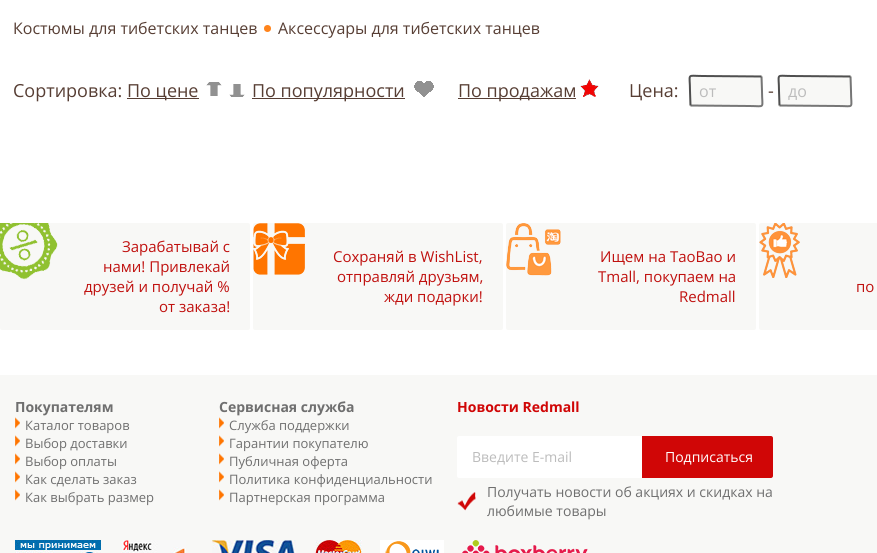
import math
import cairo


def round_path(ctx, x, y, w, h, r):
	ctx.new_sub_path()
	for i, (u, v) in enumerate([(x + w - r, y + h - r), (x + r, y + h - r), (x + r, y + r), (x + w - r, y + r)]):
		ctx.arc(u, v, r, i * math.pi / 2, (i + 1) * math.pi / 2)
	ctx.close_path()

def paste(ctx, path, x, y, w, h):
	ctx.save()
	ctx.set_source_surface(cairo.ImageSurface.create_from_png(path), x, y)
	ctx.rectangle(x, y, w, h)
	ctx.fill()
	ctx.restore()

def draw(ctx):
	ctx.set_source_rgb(1, 1, 1)
	ctx.paint()
	ctx.select_font_face('Open Sans')
	ctx.set_font_size(16)
	ctx.set_source_rgb(0.341, 0.243, 0.204)
	ctx.move_to(13, 34)
	ctx.show_text('Костюмы для тибетских танцев')
	ctx.set_source_rgb(1, 0.518, 0.11)
	ctx.new_path()
	ctx.arc(267.5, 28.5, 3.5, 0, 2 * math.pi)
	ctx.fill()
	ctx.set_source_rgb(0.341, 0.243, 0.204)
	ctx.move_to(278, 34)
	ctx.show_text('Аксессуары для тибетских танцев')
	ctx.set_font_size(18)
	ctx.move_to(13, 97)
	ctx.show_text('Сортировка:')
	ctx.rectangle(127, 98, 72, 1)
	ctx.fill()
	ctx.move_to(127, 97)
	ctx.show_text('По цене')
	paste(ctx, 'media/1.png', 206, 82, 16, 14)
	paste(ctx, 'media/2.png', 229, 84, 16, 13)
	ctx.rectangle(252, 98, 153, 1)
	ctx.fill()
	ctx.move_to(252, 97)
	ctx.show_text('По популярности')
	paste(ctx, 'media/3.png', 414, 81, 20, 16)
	ctx.rectangle(458, 98, 118, 1)
	ctx.fill()
	ctx.move_to(458, 97)
	ctx.show_text('По продажам')
	paste(ctx, 'media/4.png', 580, 79, 19, 18)
	ctx.move_to(629, 97)
	ctx.show_text('Цена:')
	ctx.set_source_rgb(0.969, 0.969, 0.961)
	round_path(ctx, 689, 75, 74, 32, 2)
	ctx.fill()
	ctx.new_path()
	ctx.move_to(761.5, 76.5)
	ctx.line_to(762, 91)
	ctx.curve_to(762, 109.5, 766, 106, 749.5, 106)
	ctx.line_to(690.5, 105.5)
	ctx.set_source_rgb(0.463, 0.463, 0.463)
	ctx.stroke()
	ctx.new_path()
	ctx.move_to(690.5, 105.5)
	ctx.line_to(690, 91)
	ctx.curve_to(690, 72.5, 686, 76, 702.5, 76)
	ctx.line_to(761.5, 76.5)
	ctx.set_source_rgb(0.31, 0.31, 0.31)
	ctx.stroke()
	ctx.set_font_size(16)
	ctx.set_source_rgb(0.737, 0.737, 0.737)
	ctx.move_to(699, 97)
	ctx.show_text('от')
	ctx.set_font_size(18)
	ctx.set_source_rgb(0.341, 0.243, 0.204)
	ctx.move_to(768, 97)
	ctx.show_text('-')
	ctx.set_source_rgb(0.969, 0.969, 0.961)
	round_path(ctx, 778, 75, 74, 32, 2)
	ctx.fill()
	ctx.new_path()
	ctx.move_to(850.5, 76.5)
	ctx.line_to(851, 91)
	ctx.curve_to(851, 109.5, 855, 106, 838.5, 106)
	ctx.line_to(779.5, 105.5)
	ctx.set_source_rgb(0.463, 0.463, 0.463)
	ctx.stroke()
	ctx.new_path()
	ctx.move_to(779.5, 105.5)
	ctx.line_to(779, 91)
	ctx.curve_to(779, 72.5, 775, 76, 791.5, 76)
	ctx.line_to(850.5, 76.5)
	ctx.set_source_rgb(0.31, 0.31, 0.31)
	ctx.stroke()
	ctx.set_font_size(16)
	ctx.set_source_rgb(0.737, 0.737, 0.737)
	ctx.move_to(788, 97)
	ctx.show_text('до')
	ctx.set_source_rgb(0.969, 0.969, 0.961)
	round_path(ctx, 0, 223, 250, 107, 2)
	ctx.fill()
	paste(ctx, 'media/5.png', 0, 223, 58, 57)
	ctx.set_font_size(15)
	ctx.set_source_rgb(0.753, 0.067, 0.059)
	for x, y, s in [
		(122, 252, 'Зарабатывай с'),
		(103, 272, 'нами! Привлекай'),
		(84, 292, 'друзей и получай %'),
		(159, 312, 'от заказа!'),
	]:
		ctx.move_to(x, y)
		ctx.show_text(s)
	ctx.set_source_rgb(0.969, 0.969, 0.961)
	round_path(ctx, 253, 223, 250, 107, 2)
	ctx.fill()
	paste(ctx, 'media/6.png', 253, 223, 52, 52)
	ctx.set_source_rgb(0.753, 0.067, 0.059)
	for x, y, s in [
		(333, 262, 'Сохраняй в WishList,'),
		(337, 282, 'отправляй друзьям,'),
		(384, 302, 'жди подарки!'),
	]:
		ctx.move_to(x, y)
		ctx.show_text(s)
	ctx.set_source_rgb(0.969, 0.969, 0.961)
	round_path(ctx, 506, 223, 250, 107, 2)
	ctx.fill()
	paste(ctx, 'media/7.png', 506, 223, 55, 53)
	ctx.set_source_rgb(0.753, 0.067, 0.059)
	for x, y, s in [
		(600, 262, 'Ищем на TaoBao и'),
		(598, 282, 'Tmall, покупаем на'),
		(679, 302, 'Redmall'),
	]:
		ctx.move_to(x, y)
		ctx.show_text(s)
	ctx.set_source_rgb(0.969, 0.969, 0.961)
	round_path(ctx, 759, 223, 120, 107, 2)
	ctx.fill()
	paste(ctx, 'media/8.png', 759, 223, 41, 55)
	ctx.set_source_rgb(0.753, 0.067, 0.059)
	ctx.move_to(856, 292)
	ctx.show_text('по')
	ctx.set_source_rgb(0.969, 0.969, 0.961)
	ctx.rectangle(0, 375, 877, 178)
	ctx.fill()
	ctx.select_font_face('Open Sans', cairo.FONT_SLANT_NORMAL, cairo.FONT_WEIGHT_BOLD)
	ctx.set_font_size(14)
	ctx.set_source_rgb(0.435, 0.435, 0.435)
	ctx.move_to(15, 412)
	ctx.show_text('Покупателям')
	paste(ctx, 'media/9.png', 15, 417, 5, 12)
	ctx.select_font_face('Open Sans')
	ctx.set_font_size(13)
	ctx.move_to(25, 430)
	ctx.show_text('Каталог товаров')
	paste(ctx, 'media/9.png', 15, 435, 5, 12)
	ctx.move_to(25, 448)
	ctx.show_text('Выбор доставки')
	paste(ctx, 'media/9.png', 15, 453, 5, 12)
	ctx.move_to(25, 466)
	ctx.show_text('Выбор оплаты')
	paste(ctx, 'media/9.png', 15, 471, 5, 12)
	ctx.move_to(25, 484)
	ctx.show_text('Как сделать заказ')
	paste(ctx, 'media/9.png', 15, 489, 5, 12)
	ctx.move_to(25, 502)
	ctx.show_text('Как выбрать размер')
	ctx.select_font_face('Open Sans', cairo.FONT_SLANT_NORMAL, cairo.FONT_WEIGHT_BOLD)
	ctx.set_font_size(14)
	ctx.move_to(219, 412)
	ctx.show_text('Сервисная служба')
	paste(ctx, 'media/9.png', 219, 417, 5, 12)
	ctx.select_font_face('Open Sans')
	ctx.set_font_size(13)
	ctx.move_to(229, 430)
	ctx.show_text('Служба поддержки')
	paste(ctx, 'media/9.png', 219, 435, 5, 12)
	ctx.move_to(229, 448)
	ctx.show_text('Гарантии покупателю')
	paste(ctx, 'media/9.png', 219, 453, 5, 12)
	ctx.move_to(229, 466)
	ctx.show_text('Публичная оферта')
	paste(ctx, 'media/9.png', 219, 471, 5, 12)
	ctx.move_to(229, 484)
	ctx.show_text('Политика конфиденциальности')
	paste(ctx, 'media/9.png', 219, 489, 5, 12)
	ctx.move_to(229, 502)
	ctx.show_text('Партнерская программа')
	ctx.select_font_face('Open Sans', cairo.FONT_SLANT_NORMAL, cairo.FONT_WEIGHT_BOLD)
	ctx.set_font_size(14)
	ctx.set_source_rgb(0.816, 0.024, 0.024)
	ctx.move_to(457, 412)
	ctx.show_text('Новости Redmall')
	ctx.set_source_rgb(1, 1, 1)
	ctx.new_path()
	ctx.move_to(459, 436)
	ctx.line_to(642, 436)
	ctx.line_to(642, 478)
	ctx.line_to(459, 478)
	ctx.curve_to(458, 478, 457, 477, 457, 476)
	ctx.line_to(457, 438)
	ctx.curve_to(457, 437, 458, 436, 459, 436)
	ctx.close_path()
	ctx.fill()
	ctx.select_font_face('Open Sans')
	ctx.set_source_rgb(0.737, 0.737, 0.737)
	ctx.move_to(472, 462)
	ctx.show_text('Введите E-mail')
	ctx.set_source_rgb(0.816, 0.024, 0.024)
	ctx.new_path()
	ctx.move_to(642, 436)
	ctx.line_to(771, 436)
	ctx.curve_to(772, 436, 773, 437, 773, 438)
	ctx.line_to(773, 476)
	ctx.curve_to(773, 477, 772, 478, 771, 478)
	ctx.line_to(642, 478)
	ctx.close_path()
	ctx.fill()
	ctx.set_source_rgb(1, 0.996, 0.996)
	ctx.move_to(665, 462)
	ctx.show_text('Подписаться')
	paste(ctx, 'media/10.png', 457, 492, 19, 19)
	ctx.set_source_rgb(0.435, 0.435, 0.435)
	ctx.move_to(487, 497)
	ctx.show_text('Получать новости об акциях и скидках на')
	ctx.move_to(487, 516)
	ctx.show_text('любимые товары')
	paste(ctx, 'media/11.png', 15, 540, 86, 13)
	paste(ctx, 'media/12.png', 121, 540, 65, 13)
	paste(ctx, 'media/13.png', 212, 540, 84, 13)
	paste(ctx, 'media/14.png', 315, 540, 47, 13)
	paste(ctx, 'media/15.png', 380, 540, 64, 13)
	paste(ctx, 'media/16.png', 462, 540, 126, 13)


surface = cairo.ImageSurface(cairo.FORMAT_RGB24, 877, 553)
ctx = cairo.Context(surface)
options = cairo.FontOptions()
options.set_hint_metrics(cairo.HINT_METRICS_OFF)
options.set_hint_style(cairo.HINT_STYLE_NONE)
ctx.set_font_options(options)
ctx.set_miter_limit(4)
draw(ctx)
surface.write_to_png('image.png')
